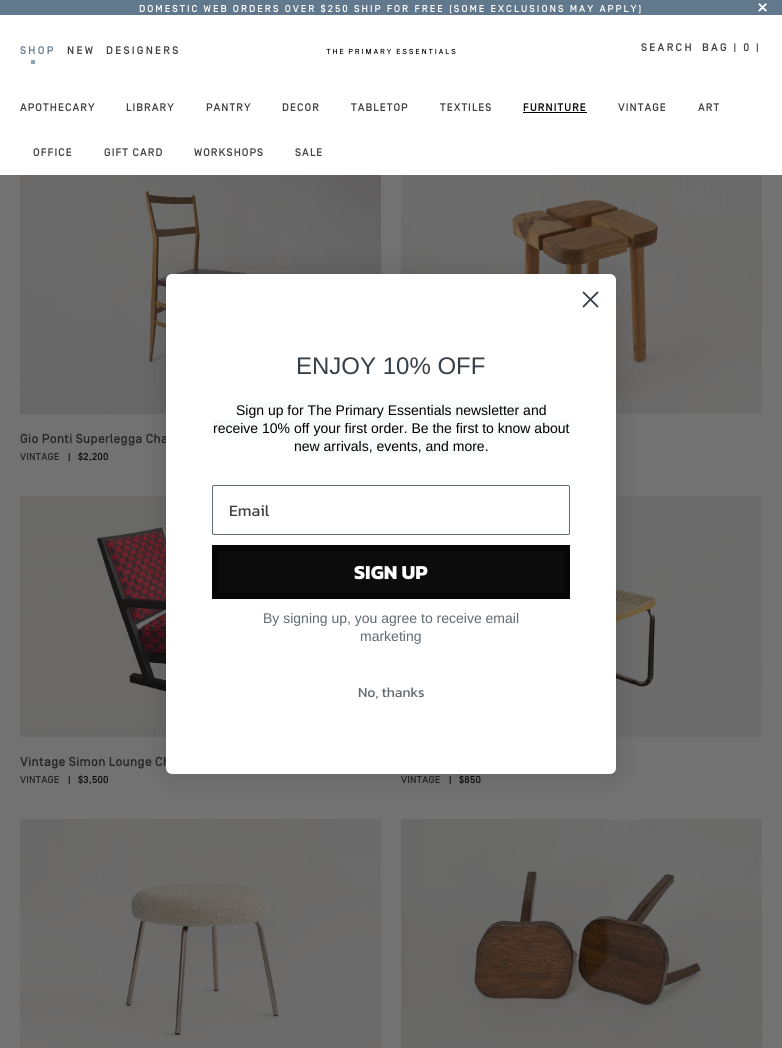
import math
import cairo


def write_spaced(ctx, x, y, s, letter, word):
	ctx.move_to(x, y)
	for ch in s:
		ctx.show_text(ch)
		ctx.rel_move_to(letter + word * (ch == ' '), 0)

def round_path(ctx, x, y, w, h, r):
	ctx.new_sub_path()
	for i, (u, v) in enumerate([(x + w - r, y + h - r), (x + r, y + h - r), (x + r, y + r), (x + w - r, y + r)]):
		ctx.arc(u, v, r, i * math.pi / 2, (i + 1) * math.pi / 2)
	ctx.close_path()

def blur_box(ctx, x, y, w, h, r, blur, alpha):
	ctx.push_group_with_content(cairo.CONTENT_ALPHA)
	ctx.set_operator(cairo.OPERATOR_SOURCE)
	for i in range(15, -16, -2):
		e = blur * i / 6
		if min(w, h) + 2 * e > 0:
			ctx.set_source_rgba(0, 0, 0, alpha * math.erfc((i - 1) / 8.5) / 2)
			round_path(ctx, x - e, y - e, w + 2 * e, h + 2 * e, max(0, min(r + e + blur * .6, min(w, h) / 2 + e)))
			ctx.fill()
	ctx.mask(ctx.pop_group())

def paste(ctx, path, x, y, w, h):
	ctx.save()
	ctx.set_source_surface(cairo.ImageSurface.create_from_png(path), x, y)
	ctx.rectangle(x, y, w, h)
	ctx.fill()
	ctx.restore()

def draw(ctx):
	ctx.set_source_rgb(0.447, 0.447, 0.447)
	ctx.paint()
	ctx.set_source_rgb(0.384, 0.475, 0.553)
	ctx.rectangle(0, 0, 782, 15)
	ctx.fill()
	ctx.select_font_face('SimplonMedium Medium')
	ctx.set_font_size(10)
	ctx.set_source_rgb(1, 1, 1)
	write_spaced(ctx, 139, 12, 'DOMESTIC WEB ORDERS OVER $250 SHIP FOR FREE (SOME EXCLUSIONS MAY APPLY)', 2, 0)
	ctx.set_font_size(20)
	write_spaced(ctx, 757, 13, '×', 2, 0)
	ctx.rectangle(0, 15, 782, 160)
	ctx.fill()
	ctx.set_font_size(11)
	ctx.set_source_rgb(0.251, 0.251, 0.251)
	write_spaced(ctx, 641, 51, 'SEARCH', 2.25, 0)
	write_spaced(ctx, 702, 51, 'BAG | 0 |', 2.25, 0)
	ctx.set_source_rgb(0.569, 0.643, 0.702)
	ctx.rectangle(31, 60, 4, 4)
	ctx.fill()
	ctx.set_source_rgb(0.384, 0.475, 0.553)
	write_spaced(ctx, 20, 54, 'SHOP', 2.25, 0)
	ctx.set_source_rgb(0.251, 0.251, 0.251)
	for x, y, s in [
		(20, 111, 'APOTHECARY'),
		(126, 111, 'LIBRARY'),
		(206, 111, 'PANTRY'),
		(282, 111, 'DECOR'),
		(351, 111, 'TABLETOP'),
		(440, 111, 'TEXTILES'),
	]:
		write_spaced(ctx, x, y, s, 1, 0)
	ctx.set_source_rgb(0, 0, 0)
	write_spaced(ctx, 523, 111, 'FURNITURE', 1, 0)
	ctx.rectangle(523, 112, 64, 1)
	ctx.fill()
	ctx.set_source_rgb(0.251, 0.251, 0.251)
	for x, y, s in [
		(618, 111, 'VINTAGE'),
		(698, 111, 'ART'),
		(33, 156, 'OFFICE'),
		(104, 156, 'GIFT CARD'),
		(194, 156, 'WORKSHOPS'),
		(295, 156, 'SALE'),
	]:
		write_spaced(ctx, x, y, s, 1, 0)
	write_spaced(ctx, 67, 54, 'NEW', 2.25, 0)
	write_spaced(ctx, 106, 54, 'DESIGNERS', 2.25, 0)
	paste(ctx, 'media/1.png', 326, 48, 130, 7)
	paste(ctx, 'media/2.png', 401, 175, 361, 239)
	paste(ctx, 'media/3.png', 20, 175, 361, 239)
	ctx.set_font_size(13)
	ctx.set_source_rgb(0.149, 0.149, 0.149)
	write_spaced(ctx, 20, 443, 'Gio Ponti Superlegga Cha', 0.2, 0)
	ctx.set_font_size(10)
	write_spaced(ctx, 20, 460, 'VINTAGE', 0.2, 0)
	ctx.set_source_rgb(0.047, 0.047, 0.047)
	write_spaced(ctx, 68, 460, '|', 0.2, 0)
	write_spaced(ctx, 78, 460, '$2,200', 0.2, 0)
	paste(ctx, 'media/4.png', 20, 496, 146, 241)
	ctx.set_font_size(13)
	ctx.set_source_rgb(0.149, 0.149, 0.149)
	write_spaced(ctx, 20, 766, 'Vintage Simon Lounge Ch', 0.2, 0)
	ctx.set_font_size(10)
	write_spaced(ctx, 20, 783, 'VINTAGE', 0.2, 0)
	ctx.set_source_rgb(0.047, 0.047, 0.047)
	write_spaced(ctx, 68, 783, '|', 0.2, 0)
	write_spaced(ctx, 78, 783, '$3,500', 0.2, 0)
	paste(ctx, 'media/5.png', 616, 496, 146, 241)
	ctx.set_source_rgb(0.149, 0.149, 0.149)
	write_spaced(ctx, 401, 783, 'VINTAGE', 0.2, 0)
	ctx.set_source_rgb(0.047, 0.047, 0.047)
	write_spaced(ctx, 449, 783, '|', 0.2, 0)
	write_spaced(ctx, 459, 783, '$850', 0.2, 0)
	paste(ctx, 'media/6.png', 20, 819, 361, 229)
	paste(ctx, 'media/7.png', 401, 819, 361, 229)
	ctx.set_source_rgb(0, 0, 0)
	blur_box(ctx, 166, 274, 450, 500, 6, 15, 0.15)
	ctx.set_source_rgb(1, 1, 1)
	round_path(ctx, 166, 274, 450, 500, 6)
	ctx.fill()
	ctx.new_path()
	ctx.move_to(583.5, 292.5)
	ctx.line_to(597.5, 306.5)
	ctx.move_to(583.5, 306.5)
	ctx.line_to(597.5, 292.5)
	ctx.close_path()
	ctx.set_source_rgb(0.216, 0.247, 0.278)
	ctx.set_line_width(1.8)
	ctx.set_line_cap(cairo.LINE_CAP_ROUND)
	ctx.set_line_join(cairo.LINE_JOIN_ROUND)
	ctx.stroke()
	ctx.select_font_face('Liberation Sans')
	ctx.set_font_size(24)
	ctx.move_to(296, 374)
	ctx.show_text('ENJOY 10% OFF')
	ctx.set_source_rgb(0.976, 0.98, 0.988)
	ctx.rectangle(236, 402, 310, 16)
	ctx.fill()
	ctx.set_font_size(14)
	ctx.set_source_rgb(0, 0, 0)
	ctx.move_to(236, 415)
	ctx.show_text('Sign up for The Primary Essentials newsletter and')
	ctx.set_source_rgb(0.976, 0.98, 0.988)
	ctx.rectangle(213, 420, 356, 16)
	ctx.fill()
	ctx.set_source_rgb(0, 0, 0)
	ctx.move_to(213, 433)
	ctx.show_text('receive 10% off your first order. Be the first to know about')
	ctx.set_source_rgb(0.976, 0.98, 0.988)
	ctx.rectangle(294, 438, 194, 16)
	ctx.fill()
	ctx.set_source_rgb(0, 0, 0)
	ctx.move_to(294, 451)
	ctx.show_text('new arrivals, events, and more.')
	round_path(ctx, 212.5, 485.5, 357, 49, 1.5)
	ctx.set_source_rgb(0.376, 0.416, 0.447)
	ctx.set_line_width(1)
	ctx.set_line_cap(cairo.LINE_CAP_BUTT)
	ctx.set_line_join(cairo.LINE_JOIN_MITER)
	ctx.stroke()
	ctx.select_font_face('Kanit')
	ctx.set_font_size(16)
	ctx.set_source_rgb(0.251, 0.251, 0.251)
	ctx.move_to(229, 516)
	ctx.show_text('Email')
	ctx.set_source_rgb(0.047, 0.047, 0.047)
	ctx.rectangle(215, 548, 352, 48)
	ctx.fill_preserve()
	ctx.set_source_rgb(0.031, 0.031, 0.031)
	ctx.set_line_width(6)
	ctx.stroke()
	ctx.select_font_face('Kanit', cairo.FONT_SLANT_NORMAL, cairo.FONT_WEIGHT_BOLD)
	ctx.set_font_size(20)
	ctx.set_source_rgb(1, 1, 1)
	ctx.move_to(354, 579)
	ctx.show_text('SIGN UP')
	ctx.select_font_face('Liberation Sans')
	ctx.set_font_size(14)
	ctx.set_source_rgb(0.376, 0.416, 0.447)
	ctx.move_to(263, 623)
	ctx.show_text('By signing up, you agree to receive email')
	ctx.move_to(360, 641)
	ctx.show_text('marketing')
	ctx.select_font_face('Kanit')
	ctx.move_to(358, 697)
	ctx.show_text('No, thanks')


surface = cairo.ImageSurface(cairo.FORMAT_RGB24, 782, 1048)
ctx = cairo.Context(surface)
options = cairo.FontOptions()
options.set_hint_metrics(cairo.HINT_METRICS_OFF)
options.set_hint_style(cairo.HINT_STYLE_NONE)
ctx.set_font_options(options)
ctx.set_miter_limit(4)
draw(ctx)
surface.write_to_png('image.png')
